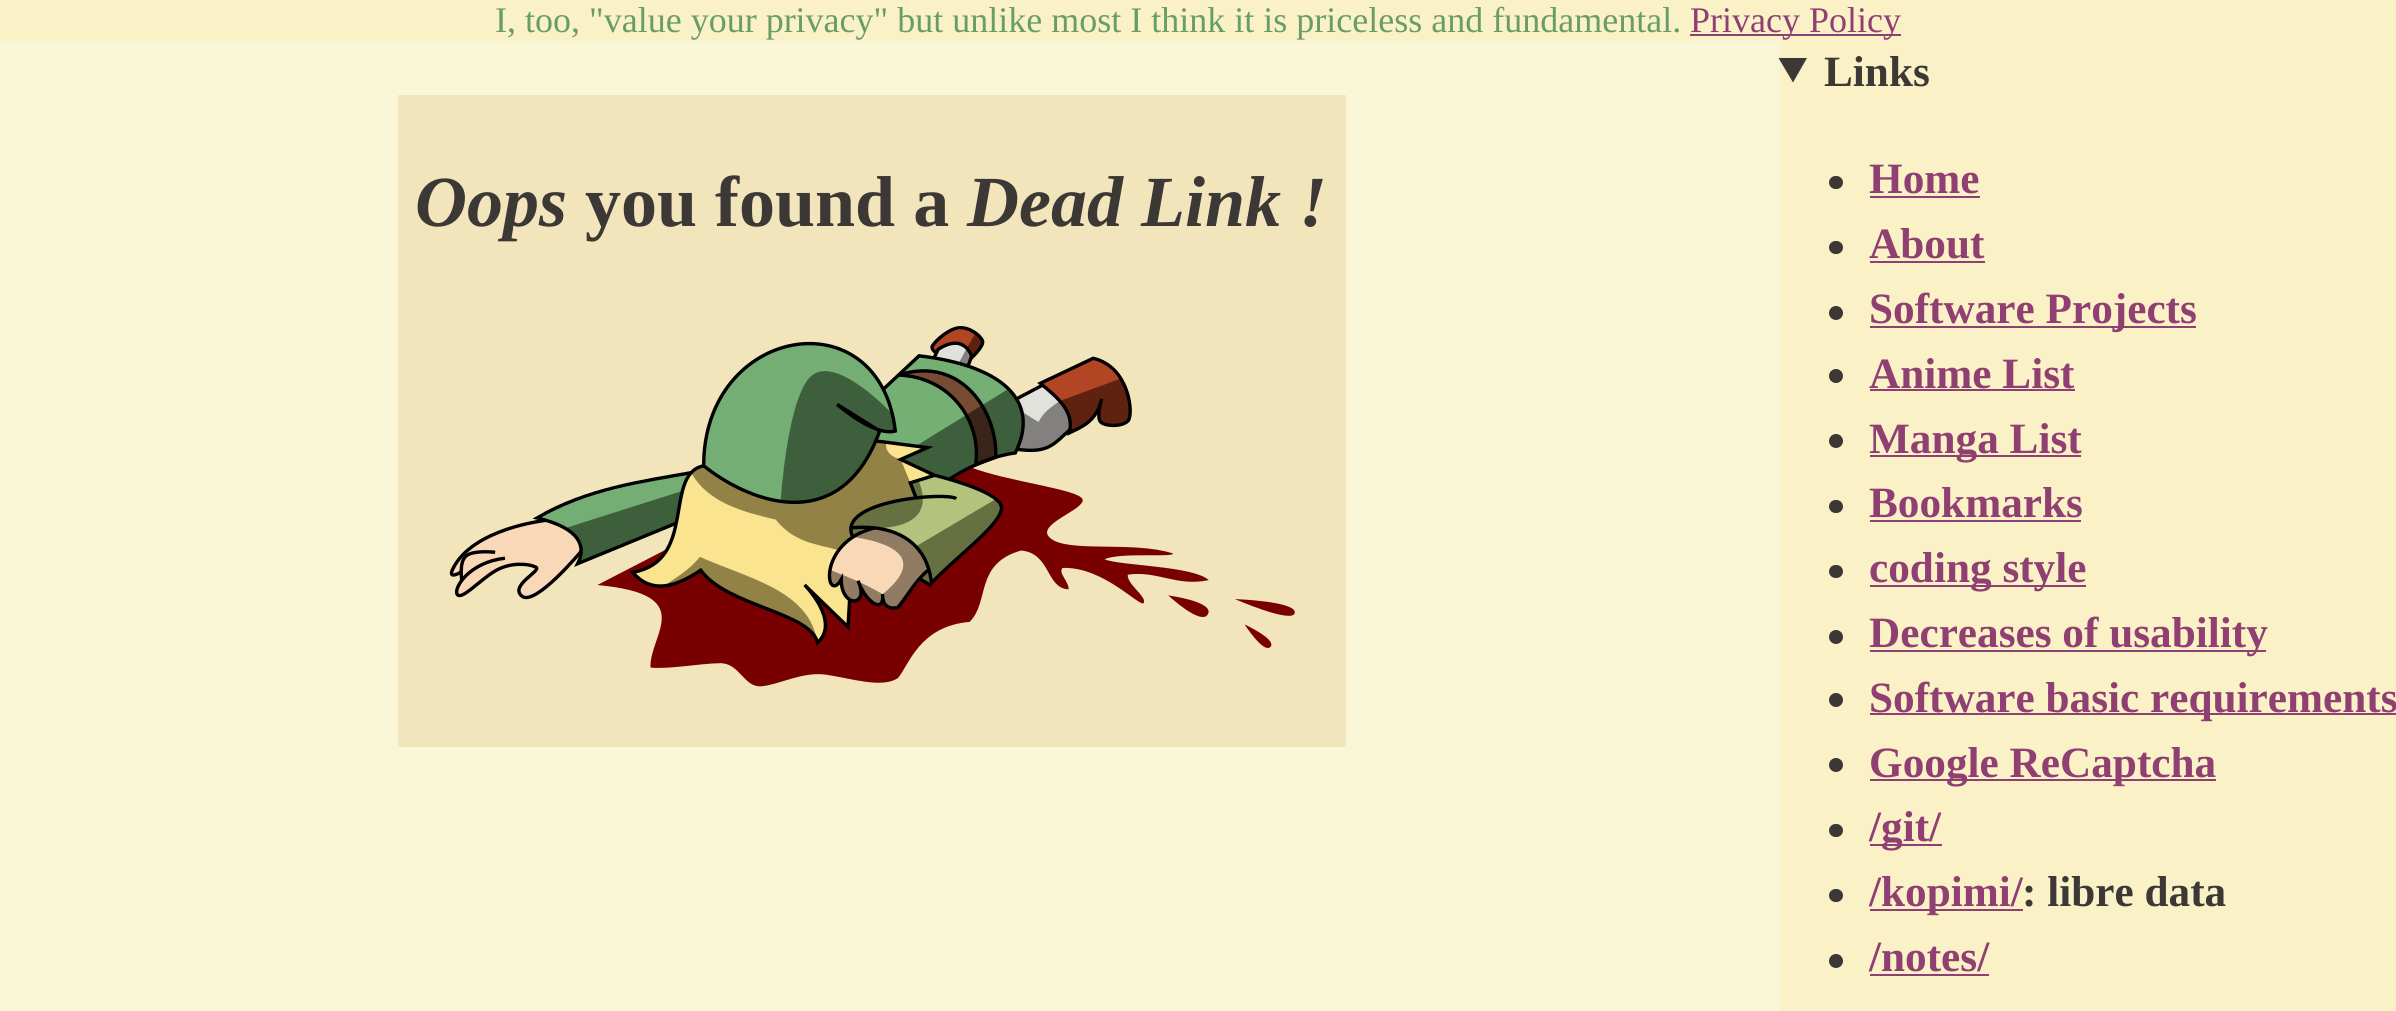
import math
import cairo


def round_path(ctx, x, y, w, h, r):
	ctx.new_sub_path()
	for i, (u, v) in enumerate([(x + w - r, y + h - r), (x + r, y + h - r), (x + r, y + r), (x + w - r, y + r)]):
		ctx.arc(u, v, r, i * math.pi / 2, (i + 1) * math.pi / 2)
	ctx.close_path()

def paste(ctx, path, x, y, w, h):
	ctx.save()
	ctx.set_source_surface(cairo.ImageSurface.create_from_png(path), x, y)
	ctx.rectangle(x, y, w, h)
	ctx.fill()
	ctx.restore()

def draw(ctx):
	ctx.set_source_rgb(0.976, 0.961, 0.843)
	ctx.paint()
	ctx.set_source_rgb(0.984, 0.945, 0.78)
	ctx.rectangle(0, 0, 2396, 41)
	ctx.fill()
	ctx.select_font_face('Liberation Serif')
	ctx.set_font_size(36)
	ctx.set_source_rgb(0.408, 0.616, 0.416)
	ctx.move_to(495, 32)
	ctx.show_text('I, too, "value your privacy" but unlike most I think it is priceless and fundamental.')
	ctx.set_source_rgb(0.561, 0.247, 0.443)
	ctx.rectangle(1690, 34, 211, 2)
	ctx.fill()
	ctx.move_to(1690, 32)
	ctx.show_text('Privacy Policy')
	ctx.set_source_rgb(0.984, 0.945, 0.78)
	ctx.rectangle(1780, 41, 616, 970)
	ctx.fill()
	ctx.set_source_rgb(0.235, 0.22, 0.212)
	ctx.new_path()
	ctx.move_to(1778.5, 58)
	ctx.line_to(1807, 58)
	ctx.line_to(1793, 82.5)
	ctx.close_path()
	ctx.fill()
	ctx.select_font_face('Liberation Serif', cairo.FONT_SLANT_NORMAL, cairo.FONT_WEIGHT_BOLD)
	ctx.set_font_size(43.25)
	ctx.move_to(1824, 86)
	ctx.show_text('Links')
	round_path(ctx, 1829, 176, 14, 13, 6.5)
	ctx.fill()
	ctx.set_source_rgb(0.561, 0.247, 0.443)
	ctx.move_to(1869, 193)
	ctx.show_text('Home')
	ctx.rectangle(1870, 196, 110, 2)
	ctx.fill()
	ctx.set_source_rgb(0.235, 0.22, 0.212)
	round_path(ctx, 1829, 241, 14, 13, 6.5)
	ctx.fill()
	ctx.set_source_rgb(0.561, 0.247, 0.443)
	ctx.move_to(1869, 258)
	ctx.show_text('About')
	ctx.rectangle(1870, 261, 115, 2)
	ctx.fill()
	ctx.set_source_rgb(0.235, 0.22, 0.212)
	ctx.arc(1836, 313, 7, 0, 2 * math.pi)
	ctx.fill()
	ctx.set_source_rgb(0.561, 0.247, 0.443)
	ctx.rectangle(1870, 326, 326, 2)
	ctx.fill()
	ctx.move_to(1869, 323)
	ctx.show_text('Software Projects')
	ctx.set_source_rgb(0.235, 0.22, 0.212)
	ctx.new_path()
	ctx.arc(1836, 376, 7, 0, 2 * math.pi)
	ctx.fill()
	ctx.set_source_rgb(0.561, 0.247, 0.443)
	ctx.move_to(1869, 388)
	ctx.show_text('Anime List')
	ctx.rectangle(1870, 389, 205, 2)
	ctx.fill()
	ctx.set_source_rgb(0.235, 0.22, 0.212)
	ctx.arc(1836, 441, 7, 0, 2 * math.pi)
	ctx.fill()
	ctx.set_source_rgb(0.561, 0.247, 0.443)
	ctx.rectangle(1870, 455, 211, 2)
	ctx.fill()
	ctx.move_to(1869, 453)
	ctx.show_text('Manga List')
	ctx.set_source_rgb(0.235, 0.22, 0.212)
	round_path(ctx, 1829, 500, 14, 13, 6.5)
	ctx.fill()
	ctx.set_source_rgb(0.561, 0.247, 0.443)
	ctx.move_to(1869, 517)
	ctx.show_text('Bookmarks')
	ctx.rectangle(1870, 520, 211, 2)
	ctx.fill()
	ctx.set_source_rgb(0.235, 0.22, 0.212)
	round_path(ctx, 1829, 565, 14, 13, 6.5)
	ctx.fill()
	ctx.set_source_rgb(0.561, 0.247, 0.443)
	ctx.rectangle(1870, 585, 216, 2)
	ctx.fill()
	ctx.move_to(1869, 582)
	ctx.show_text('coding style')
	ctx.set_source_rgb(0.235, 0.22, 0.212)
	ctx.new_path()
	ctx.arc(1836, 637, 7, 0, 2 * math.pi)
	ctx.fill()
	ctx.set_source_rgb(0.561, 0.247, 0.443)
	ctx.rectangle(1870, 650, 396, 2)
	ctx.fill()
	ctx.move_to(1869, 647)
	ctx.show_text('Decreases of usability')
	ctx.set_source_rgb(0.235, 0.22, 0.212)
	ctx.new_path()
	ctx.arc(1836, 700, 7, 0, 2 * math.pi)
	ctx.fill()
	ctx.set_source_rgb(0.561, 0.247, 0.443)
	ctx.rectangle(1870, 713, 526, 2)
	ctx.fill()
	ctx.move_to(1869, 712)
	ctx.show_text('Software basic requirements')
	ctx.set_source_rgb(0.235, 0.22, 0.212)
	ctx.new_path()
	ctx.arc(1836, 765, 7, 0, 2 * math.pi)
	ctx.fill()
	ctx.set_source_rgb(0.561, 0.247, 0.443)
	ctx.rectangle(1870, 779, 346, 2)
	ctx.fill()
	ctx.move_to(1869, 777)
	ctx.show_text('Google ReCaptcha')
	ctx.set_source_rgb(0.235, 0.22, 0.212)
	round_path(ctx, 1829, 824, 14, 13, 6.5)
	ctx.fill()
	ctx.set_source_rgb(0.561, 0.247, 0.443)
	ctx.rectangle(1870, 844, 72, 2)
	ctx.fill()
	ctx.move_to(1869, 841)
	ctx.show_text('/git/')
	ctx.set_source_rgb(0.235, 0.22, 0.212)
	round_path(ctx, 1829, 889, 14, 13, 6.5)
	ctx.fill()
	ctx.set_source_rgb(0.561, 0.247, 0.443)
	ctx.rectangle(1870, 909, 153, 2)
	ctx.fill()
	ctx.move_to(1869, 906)
	ctx.show_text('/kopimi/')
	ctx.set_source_rgb(0.235, 0.22, 0.212)
	ctx.move_to(2022, 906)
	ctx.show_text(': libre data')
	ctx.new_path()
	ctx.arc(1836, 961, 7, 0, 2 * math.pi)
	ctx.fill()
	ctx.set_source_rgb(0.561, 0.247, 0.443)
	ctx.move_to(1869, 971)
	ctx.show_text('/notes/')
	ctx.rectangle(1870, 974, 119, 2)
	ctx.fill()
	ctx.set_source_rgb(0.949, 0.898, 0.737)
	ctx.rectangle(398, 95, 948, 652)
	ctx.fill()
	ctx.select_font_face('Liberation Serif', cairo.FONT_SLANT_ITALIC, cairo.FONT_WEIGHT_BOLD)
	ctx.set_font_size(72)
	ctx.set_source_rgb(0.235, 0.22, 0.212)
	ctx.move_to(415, 226)
	ctx.show_text('Oops')
	ctx.select_font_face('Liberation Serif', cairo.FONT_SLANT_NORMAL, cairo.FONT_WEIGHT_BOLD)
	ctx.move_to(585, 226)
	ctx.show_text('you found a')
	ctx.select_font_face('Liberation Serif', cairo.FONT_SLANT_ITALIC, cairo.FONT_WEIGHT_BOLD)
	ctx.move_to(967, 226)
	ctx.show_text('Dead Link !')
	paste(ctx, 'media/1.png', 449, 326, 846, 361)


surface = cairo.ImageSurface(cairo.FORMAT_RGB24, 2396, 1011)
ctx = cairo.Context(surface)
options = cairo.FontOptions()
options.set_hint_metrics(cairo.HINT_METRICS_OFF)
options.set_hint_style(cairo.HINT_STYLE_NONE)
ctx.set_font_options(options)
ctx.set_miter_limit(4)
draw(ctx)
surface.write_to_png('image.png')
